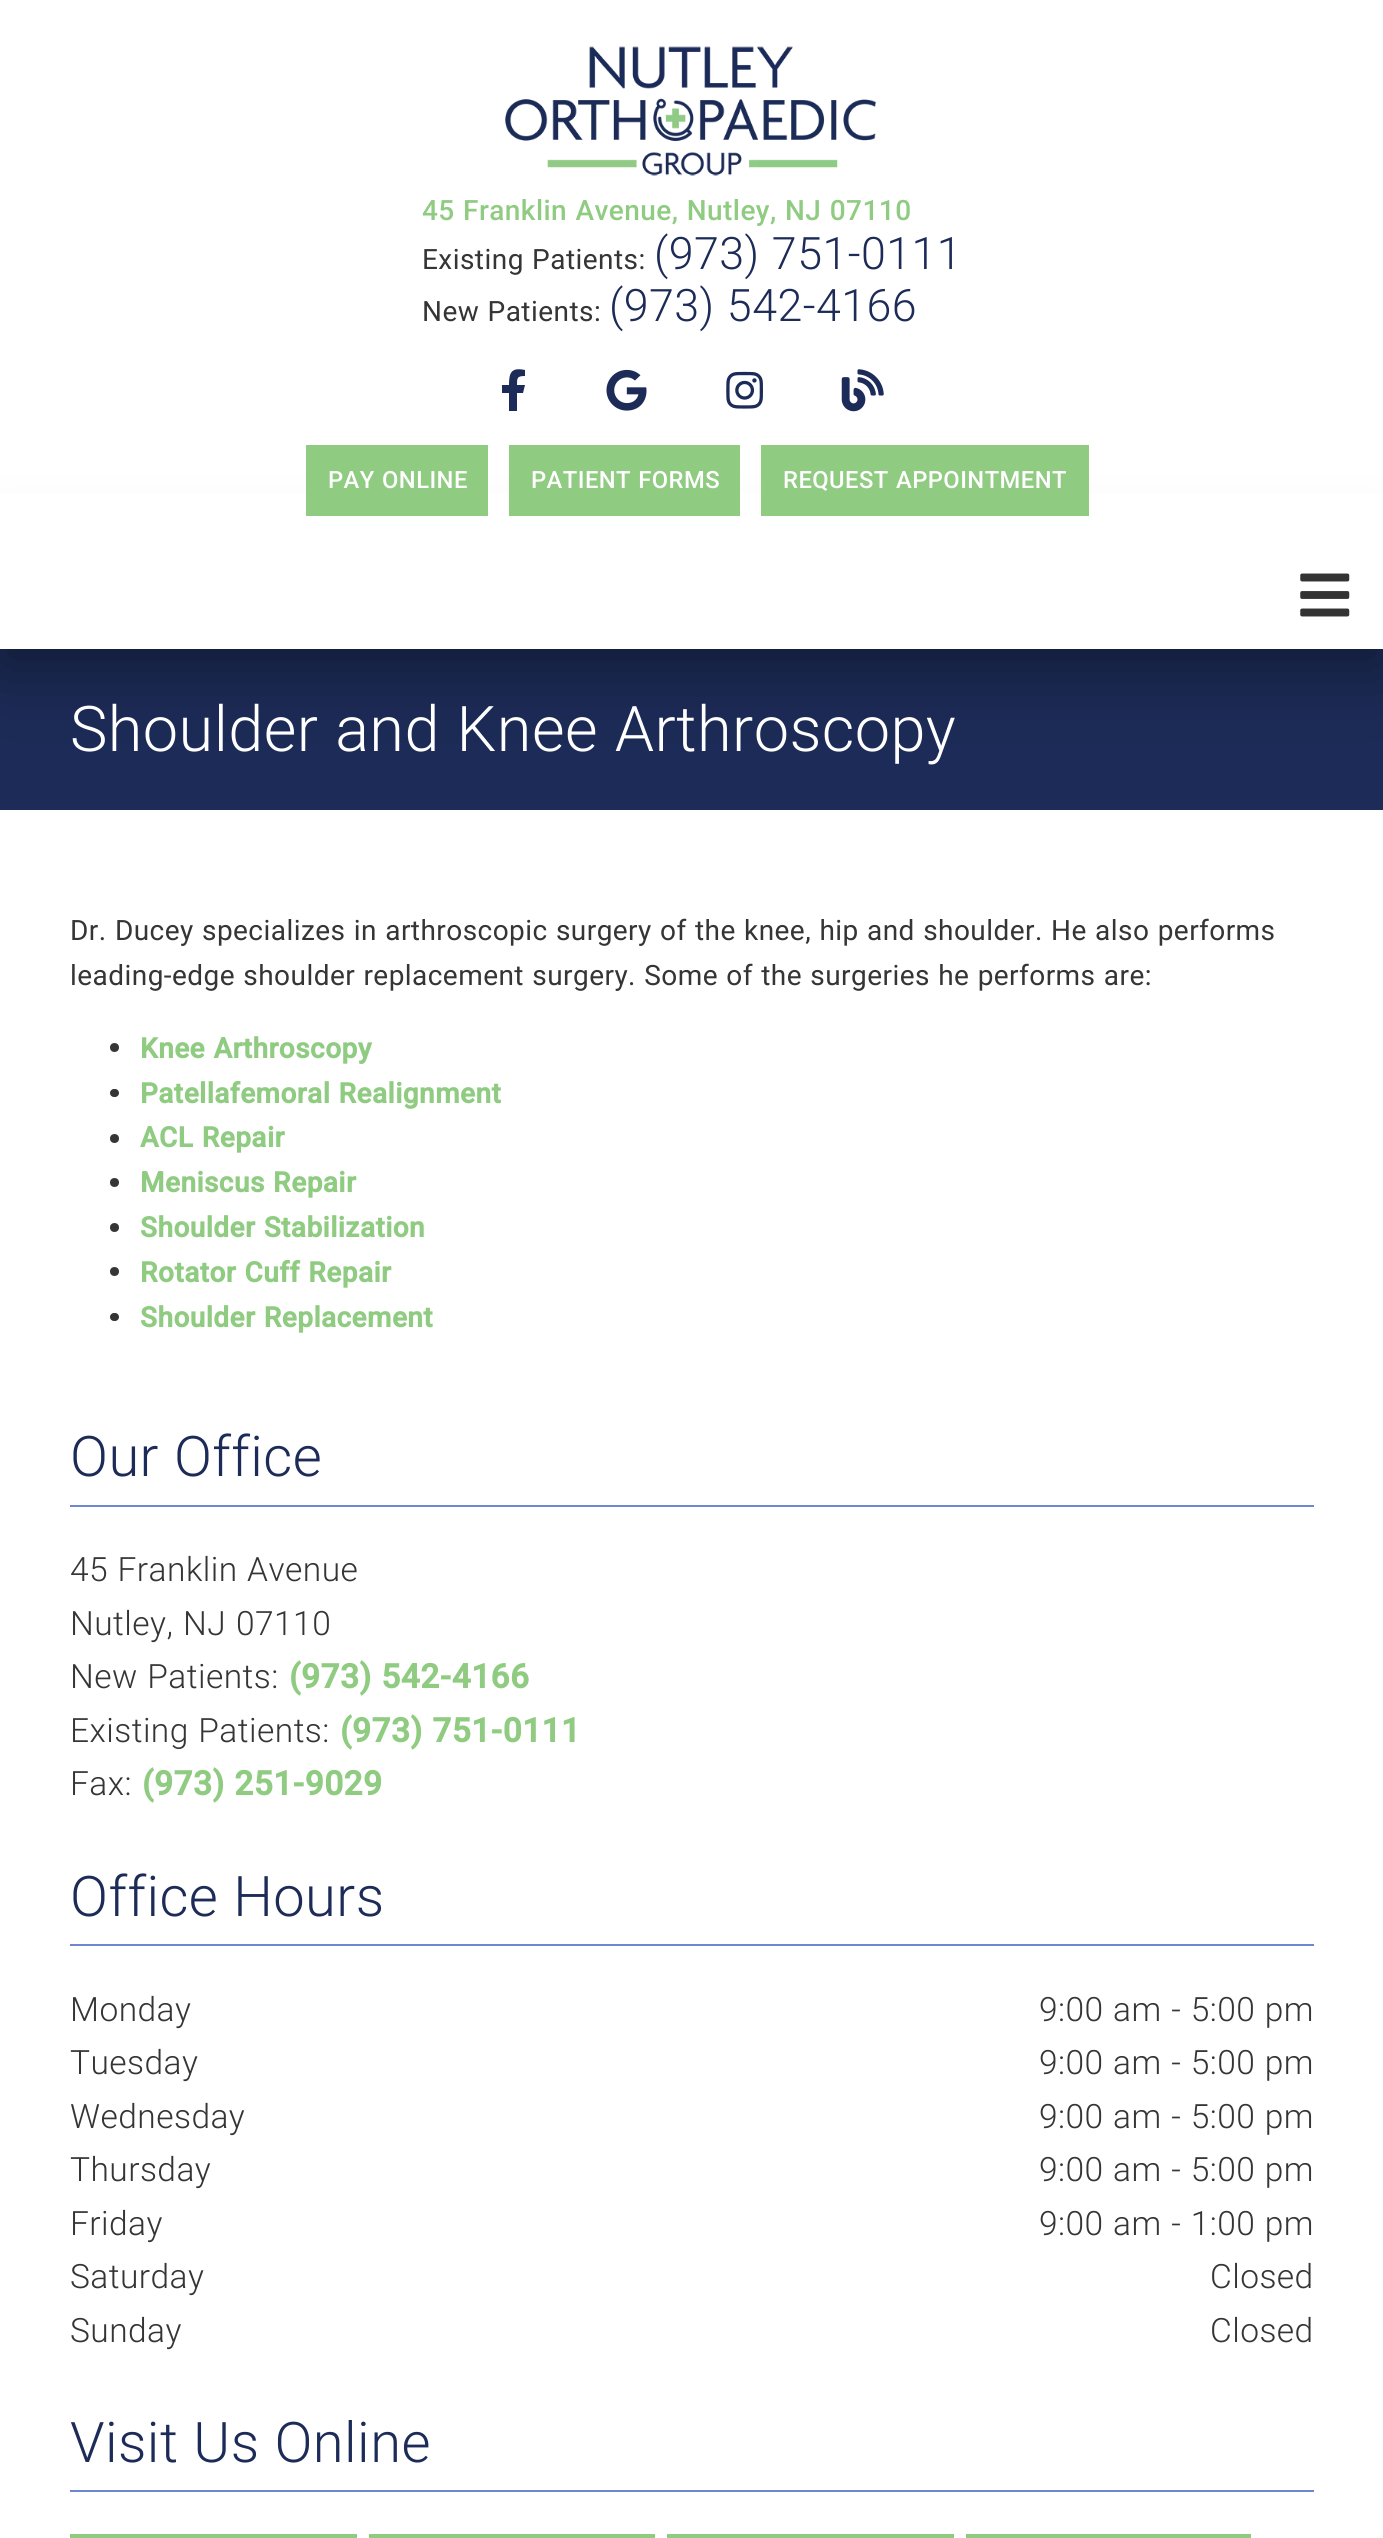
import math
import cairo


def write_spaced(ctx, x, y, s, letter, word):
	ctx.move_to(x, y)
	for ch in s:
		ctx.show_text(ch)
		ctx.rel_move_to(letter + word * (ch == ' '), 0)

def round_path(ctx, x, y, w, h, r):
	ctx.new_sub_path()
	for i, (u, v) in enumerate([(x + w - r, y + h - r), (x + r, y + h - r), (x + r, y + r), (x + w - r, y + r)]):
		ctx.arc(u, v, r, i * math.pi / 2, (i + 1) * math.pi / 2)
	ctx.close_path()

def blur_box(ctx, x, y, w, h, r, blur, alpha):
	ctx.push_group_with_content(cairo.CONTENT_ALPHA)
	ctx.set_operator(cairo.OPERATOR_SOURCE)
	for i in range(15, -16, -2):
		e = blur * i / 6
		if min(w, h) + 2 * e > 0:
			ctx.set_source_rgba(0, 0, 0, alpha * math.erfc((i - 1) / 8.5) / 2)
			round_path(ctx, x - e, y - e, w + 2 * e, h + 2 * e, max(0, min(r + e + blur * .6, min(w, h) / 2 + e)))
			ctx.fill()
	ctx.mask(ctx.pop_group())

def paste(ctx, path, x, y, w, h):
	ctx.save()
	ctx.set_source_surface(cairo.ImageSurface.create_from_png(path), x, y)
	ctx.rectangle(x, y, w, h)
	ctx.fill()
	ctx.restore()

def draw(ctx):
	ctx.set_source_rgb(1, 1, 1)
	ctx.paint()
	paste(ctx, 'media/1.png', 505, 46, 371, 130)
	ctx.select_font_face('Roboto Medium')
	ctx.set_font_size(28)
	ctx.set_source_rgb(0.565, 0.796, 0.51)
	write_spaced(ctx, 422, 220, '45 Franklin Avenue, Nutley, NJ 07110', 0.45, 0.9)
	ctx.select_font_face('Roboto')
	ctx.set_source_rgb(0.208, 0.208, 0.208)
	write_spaced(ctx, 422, 269, 'Existing Patients:', 0.45, 0.9)
	ctx.select_font_face('Roboto Light')
	ctx.set_font_size(44.75)
	ctx.set_source_rgb(0.11, 0.169, 0.341)
	write_spaced(ctx, 654, 269, '(973) 751-0111', 0.45, 0.9)
	ctx.select_font_face('Roboto')
	ctx.set_font_size(28)
	ctx.set_source_rgb(0.208, 0.208, 0.208)
	write_spaced(ctx, 422, 321, 'New Patients:', 0.45, 0.9)
	ctx.select_font_face('Roboto Light')
	ctx.set_font_size(44.75)
	ctx.set_source_rgb(0.11, 0.169, 0.341)
	write_spaced(ctx, 609, 321, '(973) 542-4166', 0.45, 0.9)
	ctx.new_path()
	ctx.move_to(523, 393)
	ctx.line_to(525, 385)
	ctx.line_to(517, 385)
	ctx.curve_to(517, 378, 517, 376, 525, 376)
	ctx.line_to(525, 370)
	ctx.curve_to(511, 367, 509, 373, 509, 385)
	ctx.line_to(502, 385)
	ctx.line_to(502, 393)
	ctx.line_to(509, 393)
	ctx.line_to(509, 411)
	ctx.line_to(517, 411)
	ctx.line_to(517, 393)
	ctx.close_path()
	ctx.fill()
	paste(ctx, 'media/2.png', 606, 369, 41, 42)
	paste(ctx, 'media/3.png', 726, 371, 37, 38)
	paste(ctx, 'media/4.png', 841, 369, 43, 43)
	ctx.rectangle(0, 649, 1383, 161)
	ctx.fill()
	ctx.set_source_rgb(0, 0, 0)
	blur_box(ctx, 0, 562, 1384, 105, 0, 35, 0.4)
	ctx.set_source_rgb(1, 1, 1)
	ctx.rectangle(0, 493, 1383, 156)
	ctx.fill()
	ctx.set_source_rgb(0.565, 0.796, 0.51)
	ctx.rectangle(306, 445, 182, 71)
	ctx.fill()
	ctx.select_font_face('Roboto Medium')
	ctx.set_font_size(23.75)
	ctx.set_source_rgb(1, 1, 1)
	write_spaced(ctx, 328, 488, 'PAY ONLINE', 0.45, 0.9)
	ctx.set_source_rgb(0.565, 0.796, 0.51)
	ctx.rectangle(509, 445, 231, 71)
	ctx.fill()
	ctx.set_source_rgb(1, 1, 1)
	write_spaced(ctx, 531, 488, 'PATIENT FORMS', 0.45, 0.9)
	ctx.set_source_rgb(0.565, 0.796, 0.51)
	ctx.rectangle(761, 445, 328, 71)
	ctx.fill()
	ctx.set_source_rgb(1, 1, 1)
	write_spaced(ctx, 783, 488, 'REQUEST APPOINTMENT', 0.45, 0.9)
	paste(ctx, 'media/5.png', 1300, 573, 50, 44)
	ctx.select_font_face('Roboto Light')
	ctx.set_font_size(63)
	write_spaced(ctx, 70, 751, 'Shoulder and Knee Arthroscopy', 0.45, 0.9)
	ctx.select_font_face('Roboto')
	ctx.set_font_size(28)
	ctx.set_source_rgb(0.208, 0.208, 0.208)
	write_spaced(ctx, 70, 940, 'Dr. Ducey specializes in arthroscopic surgery of the knee, hip and shoulder. He also performs', 0.45, 0.9)
	write_spaced(ctx, 70, 985, 'leading-edge shoulder replacement surgery. Some of the surgeries he performs are:', 0.45, 0.9)
	ctx.new_path()
	ctx.arc(114.5, 1047.5, 4.5, 0, 2 * math.pi)
	ctx.fill()
	ctx.select_font_face('Roboto', cairo.FONT_SLANT_NORMAL, cairo.FONT_WEIGHT_BOLD)
	ctx.set_source_rgb(0.565, 0.796, 0.51)
	write_spaced(ctx, 140, 1058, 'Knee Arthroscopy', 0.45, 0.9)
	ctx.set_source_rgb(0.208, 0.208, 0.208)
	round_path(ctx, 110, 1089, 9, 8, 4)
	ctx.fill()
	ctx.set_source_rgb(0.565, 0.796, 0.51)
	write_spaced(ctx, 140, 1103, 'Patellafemoral Realignment', 0.45, 0.9)
	ctx.set_source_rgb(0.208, 0.208, 0.208)
	ctx.new_path()
	ctx.arc(114.5, 1138.5, 4.5, 0, 2 * math.pi)
	ctx.fill()
	ctx.set_source_rgb(0.565, 0.796, 0.51)
	write_spaced(ctx, 140, 1147, 'ACL Repair', 0.45, 0.9)
	ctx.set_source_rgb(0.208, 0.208, 0.208)
	ctx.new_path()
	ctx.arc(114.5, 1182.5, 4.5, 0, 2 * math.pi)
	ctx.fill()
	ctx.set_source_rgb(0.565, 0.796, 0.51)
	write_spaced(ctx, 140, 1192, 'Meniscus Repair', 0.45, 0.9)
	ctx.set_source_rgb(0.208, 0.208, 0.208)
	ctx.new_path()
	ctx.arc(114.5, 1227.5, 4.5, 0, 2 * math.pi)
	ctx.fill()
	ctx.set_source_rgb(0.565, 0.796, 0.51)
	write_spaced(ctx, 140, 1237, 'Shoulder Stabilization', 0.45, 0.9)
	ctx.set_source_rgb(0.208, 0.208, 0.208)
	ctx.new_path()
	ctx.arc(114.5, 1271.5, 4.5, 0, 2 * math.pi)
	ctx.fill()
	ctx.set_source_rgb(0.565, 0.796, 0.51)
	write_spaced(ctx, 140, 1282, 'Rotator Cuff Repair', 0.45, 0.9)
	ctx.set_source_rgb(0.208, 0.208, 0.208)
	round_path(ctx, 110, 1313, 9, 8, 4)
	ctx.fill()
	ctx.set_source_rgb(0.565, 0.796, 0.51)
	write_spaced(ctx, 140, 1327, 'Shoulder Replacement', 0.45, 0.9)
	ctx.set_source_rgb(0.435, 0.529, 0.816)
	ctx.rectangle(70, 1505, 1244, 2)
	ctx.fill()
	ctx.select_font_face('Roboto Light')
	ctx.set_font_size(56)
	ctx.set_source_rgb(0.11, 0.169, 0.341)
	write_spaced(ctx, 70, 1476, 'Our Office', 0.45, 0.9)
	ctx.set_font_size(33.5)
	ctx.set_source_rgb(0.208, 0.208, 0.208)
	write_spaced(ctx, 70, 1581, '45 Franklin Avenue', 0.45, 0.9)
	for x, y, s in [
		(70, 1635, 'Nutley,'),
		(183, 1635, 'NJ'),
		(236, 1635, '07110'),
	]:
		write_spaced(ctx, x, y, s, 0.45, 0)
	write_spaced(ctx, 70, 1688, 'New Patients:', 0.45, 0.9)
	ctx.select_font_face('Roboto', cairo.FONT_SLANT_NORMAL, cairo.FONT_WEIGHT_BOLD)
	ctx.set_source_rgb(0.565, 0.796, 0.51)
	write_spaced(ctx, 289, 1688, '(973) 542-4166', 0.45, 0.9)
	ctx.select_font_face('Roboto Light')
	ctx.set_source_rgb(0.208, 0.208, 0.208)
	write_spaced(ctx, 70, 1742, 'Existing Patients:', 0.45, 0.9)
	ctx.select_font_face('Roboto', cairo.FONT_SLANT_NORMAL, cairo.FONT_WEIGHT_BOLD)
	ctx.set_source_rgb(0.565, 0.796, 0.51)
	write_spaced(ctx, 340, 1742, '(973) 751-0111', 0.45, 0.9)
	ctx.select_font_face('Roboto Light')
	ctx.set_source_rgb(0.208, 0.208, 0.208)
	write_spaced(ctx, 70, 1795, 'Fax:', 0.45, 0)
	ctx.select_font_face('Roboto', cairo.FONT_SLANT_NORMAL, cairo.FONT_WEIGHT_BOLD)
	ctx.set_source_rgb(0.565, 0.796, 0.51)
	write_spaced(ctx, 142, 1795, '(973) 251-9029', 0.45, 0.9)
	ctx.set_source_rgb(0.435, 0.529, 0.816)
	ctx.rectangle(70, 1944, 1244, 2)
	ctx.fill()
	ctx.select_font_face('Roboto Light')
	ctx.set_font_size(56)
	ctx.set_source_rgb(0.11, 0.169, 0.341)
	write_spaced(ctx, 70, 1916, 'Office Hours', 0.45, 0.9)
	ctx.set_font_size(33.5)
	ctx.set_source_rgb(0.208, 0.208, 0.208)
	write_spaced(ctx, 70, 2021, 'Monday', 0.45, 0)
	write_spaced(ctx, 1039, 2021, '9:00 am - 5:00 pm', 0.45, 0.9)
	write_spaced(ctx, 70, 2074, 'Tuesday', 0.45, 0)
	write_spaced(ctx, 1039, 2074, '9:00 am - 5:00 pm', 0.45, 0.9)
	write_spaced(ctx, 70, 2128, 'Wednesday', 0.45, 0)
	write_spaced(ctx, 1039, 2128, '9:00 am - 5:00 pm', 0.45, 0.9)
	write_spaced(ctx, 70, 2181, 'Thursday', 0.45, 0)
	write_spaced(ctx, 1039, 2181, '9:00 am - 5:00 pm', 0.45, 0.9)
	write_spaced(ctx, 70, 2235, 'Friday', 0.45, 0)
	write_spaced(ctx, 1039, 2235, '9:00 am - 1:00 pm', 0.45, 0.9)
	for x, y, s in [
		(70, 2288, 'Saturday'),
		(1210, 2288, 'Closed'),
		(70, 2342, 'Sunday'),
		(1210, 2342, 'Closed'),
	]:
		write_spaced(ctx, x, y, s, 0.45, 0)
	ctx.set_source_rgb(0.435, 0.529, 0.816)
	ctx.rectangle(70, 2490, 1244, 2)
	ctx.fill()
	ctx.set_font_size(56)
	ctx.set_source_rgb(0.11, 0.169, 0.341)
	write_spaced(ctx, 70, 2462, 'Visit Us Online', 0.45, 0.9)
	ctx.set_source_rgb(0.565, 0.796, 0.51)
	ctx.rectangle(70, 2534, 287, 4)
	ctx.rectangle(369, 2534, 286, 4)
	ctx.rectangle(667, 2534, 287, 4)
	ctx.rectangle(966, 2534, 285, 4)
	ctx.fill()


surface = cairo.ImageSurface(cairo.FORMAT_RGB24, 1383, 2538)
ctx = cairo.Context(surface)
options = cairo.FontOptions()
options.set_hint_metrics(cairo.HINT_METRICS_OFF)
options.set_hint_style(cairo.HINT_STYLE_NONE)
ctx.set_font_options(options)
ctx.set_miter_limit(4)
draw(ctx)
surface.write_to_png('image.png')
